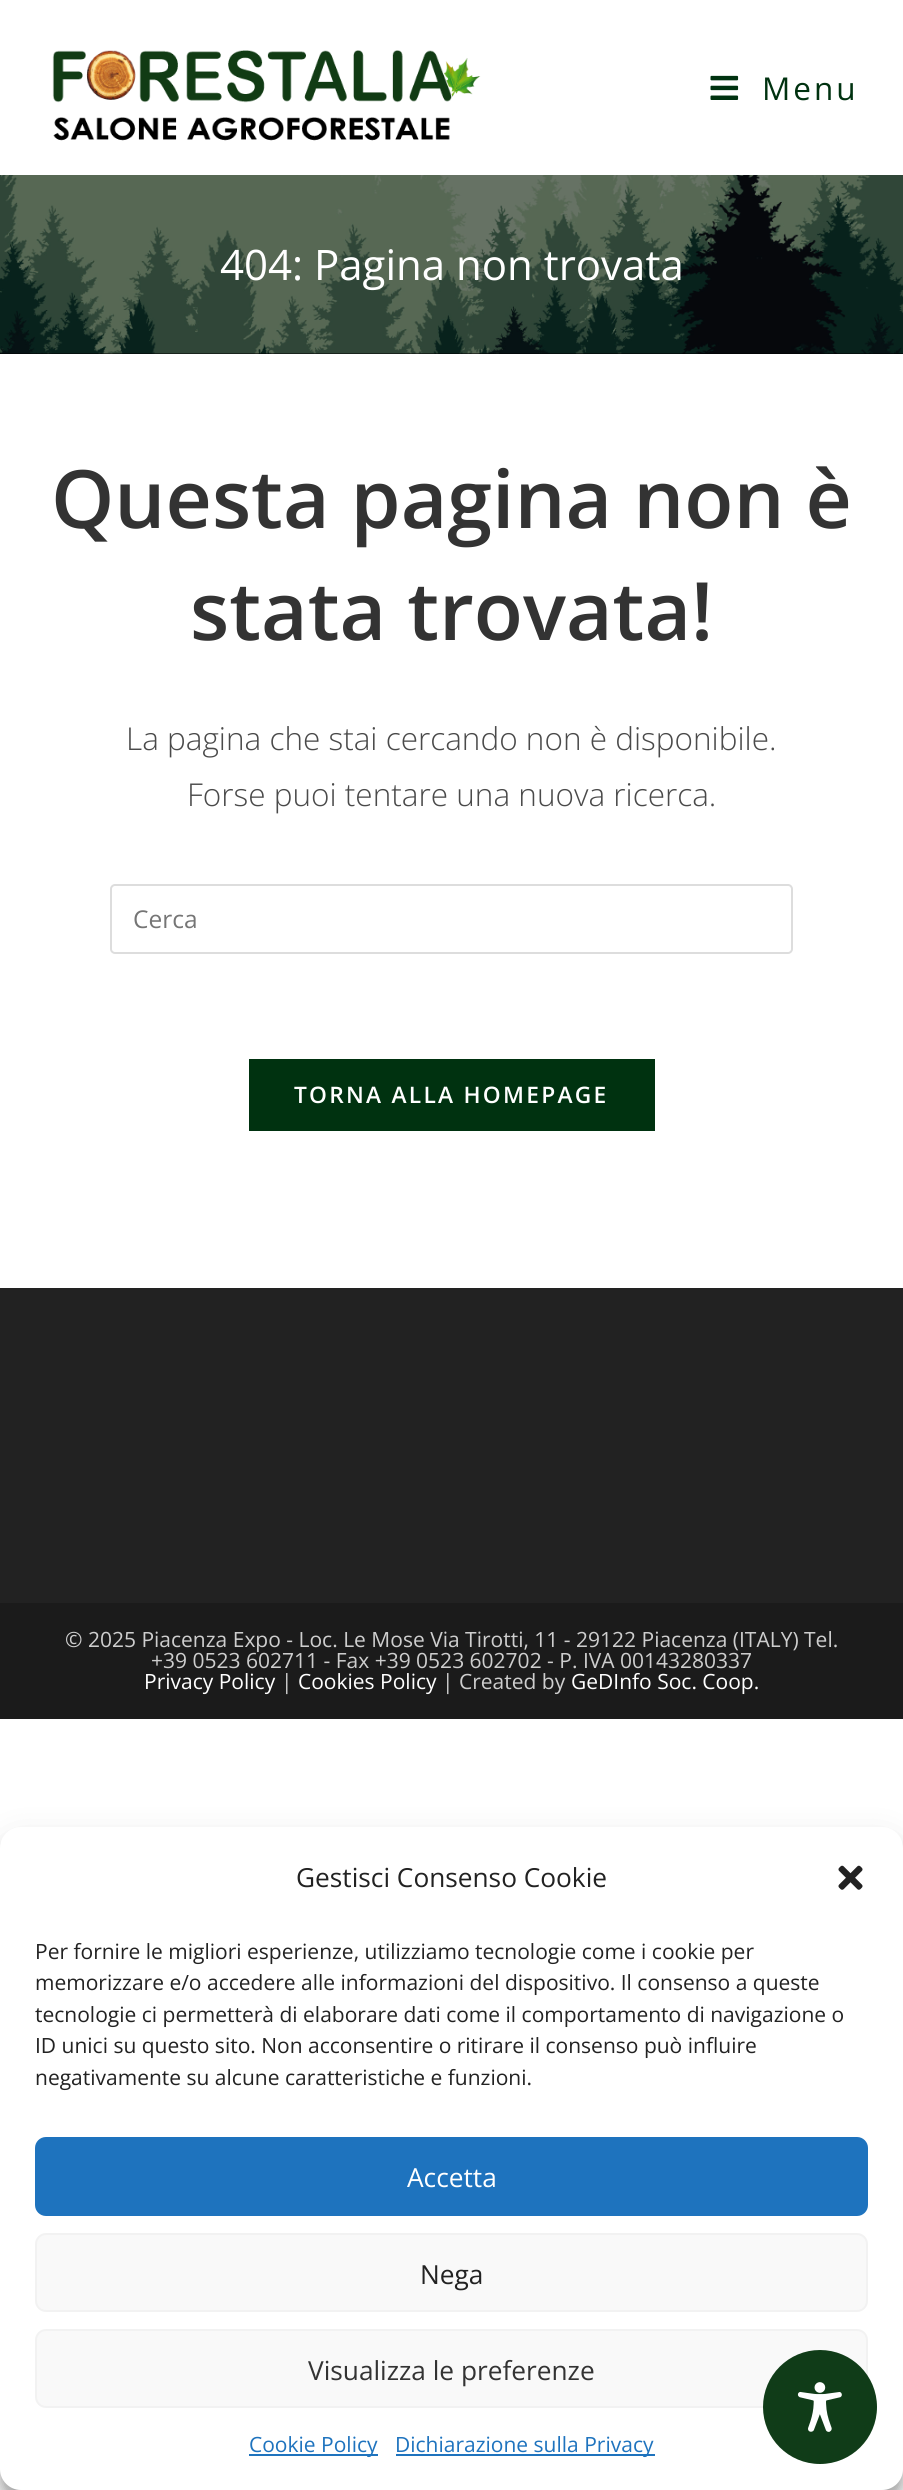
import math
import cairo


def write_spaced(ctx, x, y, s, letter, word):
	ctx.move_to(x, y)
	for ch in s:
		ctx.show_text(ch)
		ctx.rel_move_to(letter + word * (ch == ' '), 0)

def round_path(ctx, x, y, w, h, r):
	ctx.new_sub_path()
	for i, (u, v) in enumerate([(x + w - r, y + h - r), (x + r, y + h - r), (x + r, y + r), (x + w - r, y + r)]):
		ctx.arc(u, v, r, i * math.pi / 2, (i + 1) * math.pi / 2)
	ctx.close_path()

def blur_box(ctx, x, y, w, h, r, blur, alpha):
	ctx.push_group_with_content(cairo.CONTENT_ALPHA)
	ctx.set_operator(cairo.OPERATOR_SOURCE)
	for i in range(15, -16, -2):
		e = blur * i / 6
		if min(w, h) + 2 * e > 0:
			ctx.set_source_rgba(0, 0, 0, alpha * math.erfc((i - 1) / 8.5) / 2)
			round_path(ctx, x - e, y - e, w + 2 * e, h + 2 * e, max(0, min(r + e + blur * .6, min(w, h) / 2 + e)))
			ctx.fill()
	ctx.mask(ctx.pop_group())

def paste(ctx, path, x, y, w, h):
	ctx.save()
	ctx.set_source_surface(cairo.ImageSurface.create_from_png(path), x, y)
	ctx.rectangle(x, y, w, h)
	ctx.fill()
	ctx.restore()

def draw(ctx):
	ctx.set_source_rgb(1, 1, 1)
	ctx.paint()
	paste(ctx, 'media/1.png', 52, 50, 429, 91)
	paste(ctx, 'media/2.png', 710, 75, 29, 25)
	ctx.select_font_face('Open Sans')
	ctx.set_font_size(31.5)
	ctx.set_source_rgb(0, 0.196, 0.063)
	write_spaced(ctx, 762, 100, 'Menu', 3, 0)
	ctx.set_source_rgb(0, 0, 0)
	ctx.rectangle(0, 353, 903, 1)
	ctx.fill()
	paste(ctx, 'media/3.png', 0, 175, 903, 179)
	ctx.set_font_size(42)
	ctx.set_source_rgb(1, 1, 1)
	ctx.move_to(220, 280)
	ctx.show_text('404: Pagina non trovata')
	ctx.select_font_face('Open Sans SemiBold')
	ctx.set_font_size(80.5)
	ctx.set_source_rgb(0.2, 0.2, 0.2)
	ctx.move_to(51, 528)
	ctx.show_text('Questa pagina non è')
	ctx.move_to(190, 640)
	ctx.show_text('stata trovata!')
	ctx.select_font_face('Open Sans Light')
	ctx.set_font_size(31.5)
	ctx.set_source_rgb(0.29, 0.29, 0.29)
	ctx.move_to(126, 750)
	ctx.show_text('La pagina che stai cercando non è disponibile.')
	ctx.move_to(187, 806)
	ctx.show_text('Forse puoi tentare una nuova ricerca.')
	round_path(ctx, 111, 885, 681, 68, 4)
	ctx.set_source_rgb(0.867, 0.867, 0.867)
	ctx.stroke()
	ctx.select_font_face('Open Sans')
	ctx.set_font_size(24.5)
	ctx.set_source_rgb(0.459, 0.459, 0.459)
	ctx.move_to(133, 928)
	ctx.show_text('Cerca')
	ctx.set_source_rgb(0, 0.196, 0.063)
	ctx.rectangle(249, 1059, 406, 72)
	ctx.fill()
	ctx.select_font_face('Open Sans SemiBold')
	ctx.set_font_size(22.75)
	ctx.set_source_rgb(1, 1, 1)
	write_spaced(ctx, 294, 1103, 'TORNA ALLA HOMEPAGE', 2.25, 0)
	ctx.set_source_rgb(0.133, 0.133, 0.133)
	ctx.rectangle(0, 1288, 903, 315)
	ctx.fill()
	ctx.set_source_rgb(0.106, 0.106, 0.106)
	ctx.rectangle(0, 1603, 903, 116)
	ctx.fill()
	ctx.select_font_face('Open Sans')
	ctx.set_font_size(21)
	ctx.set_source_rgb(0.808, 0.808, 0.808)
	ctx.move_to(65, 1647)
	ctx.show_text('© 2025 Piacenza Expo - Loc. Le Mose Via Tirotti, 11 - 29122 Piacenza (ITALY) Tel.')
	ctx.move_to(151, 1668)
	ctx.show_text('+39 0523 602711 - Fax +39 0523 602702 - P. IVA 00143280337')
	ctx.set_source_rgb(1, 1, 1)
	ctx.move_to(144, 1689)
	ctx.show_text('Privacy Policy')
	ctx.set_source_rgb(0.808, 0.808, 0.808)
	ctx.move_to(281, 1689)
	ctx.show_text('|')
	ctx.set_source_rgb(1, 1, 1)
	ctx.move_to(298, 1689)
	ctx.show_text('Cookies Policy')
	ctx.set_source_rgb(0.808, 0.808, 0.808)
	ctx.move_to(442, 1689)
	ctx.show_text('| Created by')
	ctx.set_source_rgb(1, 1, 1)
	ctx.move_to(571, 1689)
	ctx.show_text('GeDInfo Soc. Coop.')
	ctx.set_source_rgb(0, 0, 0)
	blur_box(ctx, 0, 1838, 903, 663, 21, 5, 0.23)
	blur_box(ctx, 0, 1845, 903, 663, 21, 17.5, 0.19)
	ctx.set_source_rgb(1, 1, 1)
	round_path(ctx, 0, 1827, 903, 663, 21)
	ctx.fill()
	ctx.set_font_size(26.25)
	ctx.set_source_rgb(0.133, 0.133, 0.133)
	ctx.move_to(296, 1887)
	ctx.show_text('Gestisci Consenso Cookie')
	paste(ctx, 'media/4.png', 838, 1865, 25, 25)
	ctx.set_font_size(21)
	for x, y, s in [
		(35, 1959, 'Per fornire le migliori esperienze, utilizziamo tecnologie come i cookie per'),
		(35, 1990, 'memorizzare e/o accedere alle informazioni del dispositivo. Il consenso a queste'),
		(35, 2022, 'tecnologie ci permetterà di elaborare dati come il comportamento di navigazione o'),
		(35, 2053, 'ID unici su questo sito. Non acconsentire o ritirare il consenso può influire'),
		(35, 2085, 'negativamente su alcune caratteristiche e funzioni.'),
	]:
		ctx.move_to(x, y)
		ctx.show_text(s)
	ctx.set_source_rgb(0.118, 0.451, 0.745)
	round_path(ctx, 36, 2138, 831, 77, 10)
	ctx.fill_preserve()
	ctx.stroke()
	ctx.set_font_size(26.25)
	ctx.set_source_rgb(1, 1, 1)
	ctx.move_to(407, 2187)
	ctx.show_text('Accetta')
	ctx.set_source_rgb(0.976, 0.976, 0.976)
	round_path(ctx, 36, 2234, 831, 77, 10)
	ctx.fill_preserve()
	ctx.set_source_rgb(0.949, 0.949, 0.949)
	ctx.stroke()
	ctx.set_source_rgb(0.133, 0.133, 0.133)
	ctx.move_to(420, 2284)
	ctx.show_text('Nega')
	ctx.set_source_rgb(0.976, 0.976, 0.976)
	round_path(ctx, 36, 2330, 831, 77, 10)
	ctx.fill_preserve()
	ctx.set_source_rgb(0.949, 0.949, 0.949)
	ctx.stroke()
	ctx.set_source_rgb(0.2, 0.2, 0.2)
	ctx.move_to(308, 2380)
	ctx.show_text('Visualizza le preferenze')
	ctx.set_source_rgb(0.118, 0.451, 0.745)
	ctx.rectangle(249, 2454, 129, 2)
	ctx.fill()
	ctx.set_font_size(21)
	ctx.move_to(249, 2452)
	ctx.show_text('Cookie Policy')
	ctx.rectangle(396, 2454, 259, 2)
	ctx.fill()
	ctx.move_to(395, 2452)
	ctx.show_text('Dichiarazione sulla Privacy')
	ctx.set_source_rgb(0.063, 0.235, 0.094)
	ctx.new_path()
	ctx.arc(820, 2407, 57, 0, 2 * math.pi)
	ctx.fill()
	paste(ctx, 'media/5.png', 797, 2382, 45, 50)


surface = cairo.ImageSurface(cairo.FORMAT_RGB24, 903, 2490)
ctx = cairo.Context(surface)
options = cairo.FontOptions()
options.set_hint_metrics(cairo.HINT_METRICS_OFF)
options.set_hint_style(cairo.HINT_STYLE_NONE)
ctx.set_font_options(options)
ctx.set_miter_limit(4)
draw(ctx)
surface.write_to_png('image.png')
